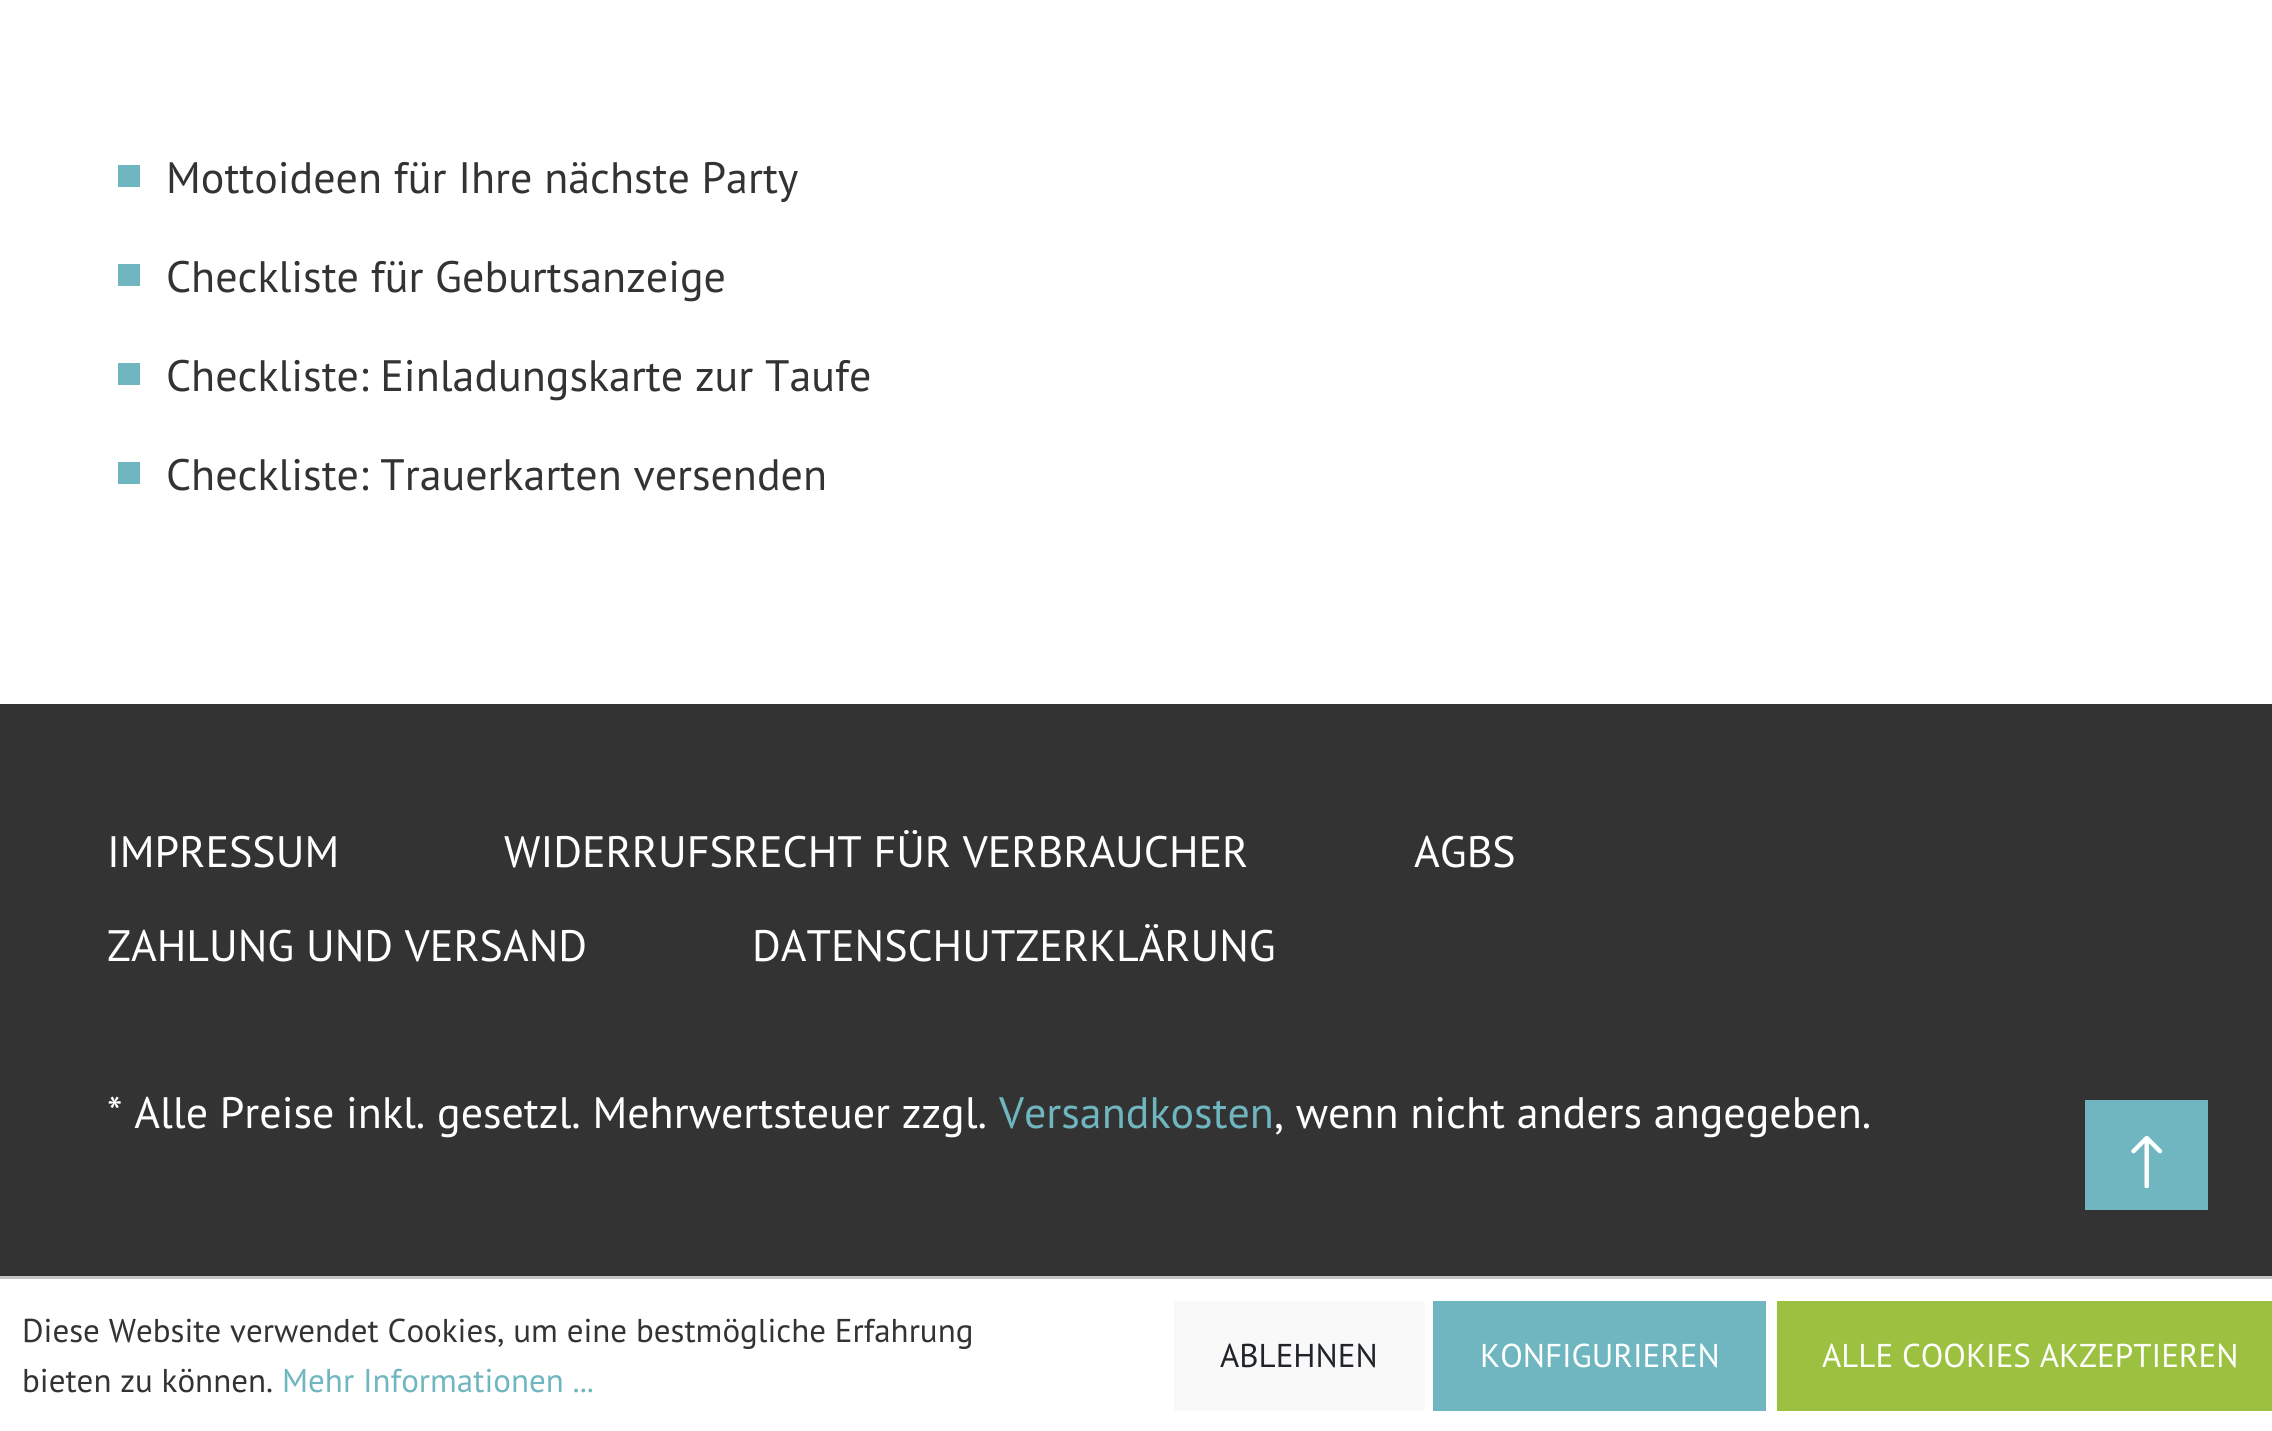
import math
import cairo


def paste(ctx, path, x, y, w, h):
	ctx.save()
	ctx.set_source_surface(cairo.ImageSurface.create_from_png(path), x, y)
	ctx.rectangle(x, y, w, h)
	ctx.fill()
	ctx.restore()

def draw(ctx):
	ctx.set_source_rgb(1, 1, 1)
	ctx.paint()
	ctx.set_source_rgb(0.439, 0.714, 0.757)
	ctx.rectangle(118, 165, 22, 22)
	ctx.fill()
	ctx.select_font_face('PT Sans')
	ctx.set_font_size(44)
	ctx.set_source_rgb(0.2, 0.2, 0.2)
	ctx.move_to(166, 193)
	ctx.show_text('Mottoideen für Ihre nächste Party')
	ctx.set_source_rgb(0.439, 0.714, 0.757)
	ctx.rectangle(118, 264, 22, 22)
	ctx.fill()
	ctx.set_source_rgb(0.2, 0.2, 0.2)
	ctx.move_to(166, 292)
	ctx.show_text('Checkliste für Geburtsanzeige')
	ctx.set_source_rgb(0.439, 0.714, 0.757)
	ctx.rectangle(118, 363, 22, 22)
	ctx.fill()
	ctx.set_source_rgb(0.2, 0.2, 0.2)
	ctx.move_to(166, 391)
	ctx.show_text('Checkliste: Einladungskarte zur Taufe')
	ctx.set_source_rgb(0.439, 0.714, 0.757)
	ctx.rectangle(118, 462, 22, 22)
	ctx.fill()
	ctx.set_source_rgb(0.2, 0.2, 0.2)
	ctx.move_to(166, 490)
	ctx.show_text('Checkliste: Trauerkarten versenden')
	ctx.rectangle(0, 704, 2272, 572)
	ctx.fill()
	ctx.set_source_rgb(1, 1, 1)
	for x, y, s in [
		(107, 867, 'IMPRESSUM'),
		(504, 867, 'WIDERRUFSRECHT FÜR VERBRAUCHER'),
		(1414, 867, 'AGBS'),
		(107, 961, 'ZAHLUNG UND VERSAND'),
		(752, 961, 'DATENSCHUTZERKLÄRUNG'),
		(107, 1128, '* Alle Preise inkl. gesetzl. Mehrwertsteuer zzgl.'),
	]:
		ctx.move_to(x, y)
		ctx.show_text(s)
	ctx.set_source_rgb(0.435, 0.714, 0.757)
	ctx.move_to(999, 1128)
	ctx.show_text('Versandkosten')
	ctx.set_source_rgb(1, 1, 1)
	ctx.move_to(1274, 1128)
	ctx.show_text(', wenn nicht anders angegeben.')
	ctx.set_source_rgb(0.435, 0.714, 0.757)
	ctx.rectangle(2085, 1100, 123, 110)
	ctx.fill()
	paste(ctx, 'media/1.png', 2131, 1136, 32, 52)
	ctx.set_source_rgb(0.769, 0.769, 0.769)
	ctx.rectangle(0, 1276, 2272, 3)
	ctx.fill()
	ctx.set_font_size(33)
	ctx.set_source_rgb(0.2, 0.2, 0.2)
	ctx.move_to(22, 1342)
	ctx.show_text('Diese Website verwendet Cookies, um eine bestmögliche Erfahrung')
	ctx.move_to(22, 1392)
	ctx.show_text('bieten zu können.')
	ctx.set_source_rgb(0.435, 0.714, 0.757)
	ctx.move_to(282, 1392)
	ctx.show_text('Mehr Informationen ...')
	ctx.set_source_rgb(0.976, 0.976, 0.976)
	ctx.rectangle(1174, 1301, 251, 110)
	ctx.fill()
	ctx.set_source_rgb(0.129, 0.145, 0.161)
	ctx.move_to(1220, 1367)
	ctx.show_text('ABLEHNEN')
	ctx.set_source_rgb(0.435, 0.714, 0.757)
	ctx.rectangle(1433, 1301, 333, 110)
	ctx.fill()
	ctx.set_source_rgb(1, 1, 1)
	ctx.move_to(1480, 1367)
	ctx.show_text('KONFIGURIEREN')
	ctx.set_source_rgb(0.612, 0.757, 0.251)
	ctx.rectangle(1777, 1301, 495, 110)
	ctx.fill()
	ctx.set_source_rgb(1, 1, 1)
	ctx.move_to(1822, 1367)
	ctx.show_text('ALLE COOKIES AKZEPTIEREN')


surface = cairo.ImageSurface(cairo.FORMAT_RGB24, 2272, 1431)
ctx = cairo.Context(surface)
options = cairo.FontOptions()
options.set_hint_metrics(cairo.HINT_METRICS_OFF)
options.set_hint_style(cairo.HINT_STYLE_NONE)
ctx.set_font_options(options)
ctx.set_miter_limit(4)
draw(ctx)
surface.write_to_png('image.png')
